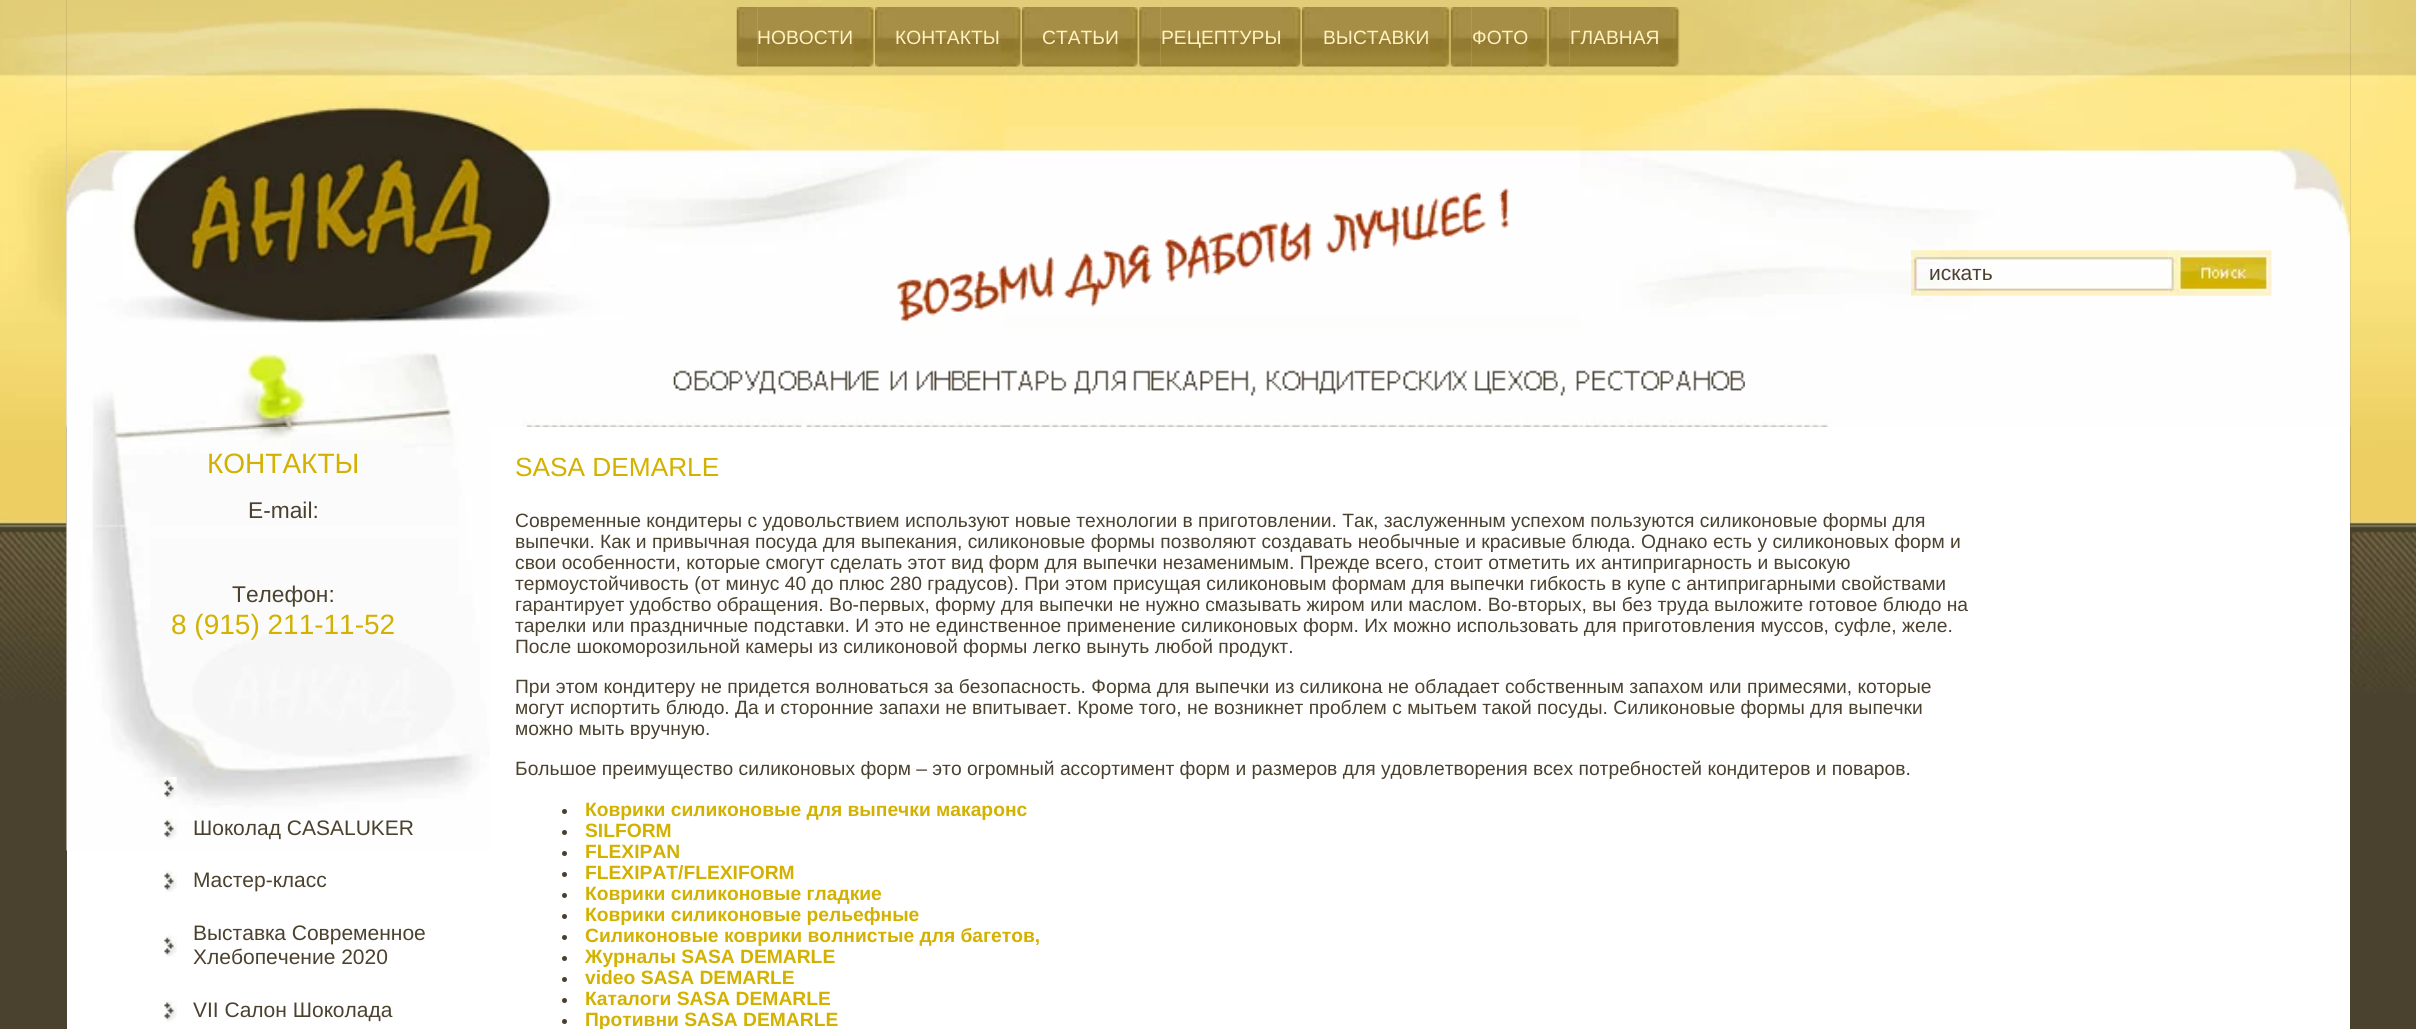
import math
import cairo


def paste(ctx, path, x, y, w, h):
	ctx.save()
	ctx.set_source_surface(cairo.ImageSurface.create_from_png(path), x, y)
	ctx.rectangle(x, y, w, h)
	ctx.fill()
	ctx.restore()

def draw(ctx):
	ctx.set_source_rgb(0.294, 0.255, 0.184)
	ctx.paint()
	paste(ctx, 'media/1.png', 0, 0, 67, 700)
	ctx.set_source_rgb(1, 1, 1)
	ctx.rectangle(67, 427, 2283, 602)
	ctx.fill()
	paste(ctx, 'media/2.png', 66, 0, 2285, 427)
	paste(ctx, 'media/3.png', 66, 0, 939, 427)
	paste(ctx, 'media/4.png', 1580, 0, 771, 427)
	paste(ctx, 'media/5.png', 736, 7, 22, 60)
	paste(ctx, 'media/6.png', 852, 7, 23, 60)
	paste(ctx, 'media/7.png', 757, 7, 97, 60)
	ctx.select_font_face('Liberation Sans')
	ctx.set_font_size(19.25)
	ctx.set_source_rgb(1, 0.949, 0.745)
	ctx.move_to(757, 44)
	ctx.show_text('НОВОСТИ')
	paste(ctx, 'media/8.png', 875, 7, 21, 60)
	paste(ctx, 'media/9.png', 999, 7, 23, 60)
	paste(ctx, 'media/10.png', 896, 7, 105, 60)
	ctx.move_to(895, 44)
	ctx.show_text('КОНТАКТЫ')
	paste(ctx, 'media/11.png', 1022, 7, 21, 60)
	paste(ctx, 'media/12.png', 1116, 7, 23, 60)
	paste(ctx, 'media/13.png', 1043, 7, 76, 60)
	ctx.move_to(1042, 44)
	ctx.show_text('СТАТЬИ')
	paste(ctx, 'media/14.png', 1139, 7, 22, 60)
	paste(ctx, 'media/15.png', 1279, 7, 23, 60)
	paste(ctx, 'media/16.png', 1160, 7, 121, 60)
	ctx.move_to(1161, 44)
	ctx.show_text('РЕЦЕПТУРЫ')
	paste(ctx, 'media/17.png', 1302, 7, 21, 60)
	paste(ctx, 'media/18.png', 1428, 7, 23, 60)
	paste(ctx, 'media/19.png', 1323, 7, 107, 60)
	ctx.move_to(1323, 44)
	ctx.show_text('ВЫСТАВКИ')
	paste(ctx, 'media/20.png', 1450, 7, 22, 60)
	paste(ctx, 'media/21.png', 1526, 7, 23, 60)
	paste(ctx, 'media/22.png', 1471, 7, 57, 60)
	ctx.move_to(1472, 44)
	ctx.show_text('ФОТО')
	paste(ctx, 'media/23.png', 1548, 7, 22, 60)
	paste(ctx, 'media/24.png', 1657, 7, 23, 60)
	paste(ctx, 'media/25.png', 1569, 7, 90, 60)
	ctx.move_to(1570, 44)
	ctx.show_text('ГЛАВНАЯ')
	paste(ctx, 'media/26.png', 673, 188, 1072, 208)
	paste(ctx, 'media/27.png', 1911, 250, 258, 46)
	ctx.set_font_size(21)
	ctx.set_source_rgb(0.294, 0.255, 0.184)
	ctx.move_to(1929, 280)
	ctx.show_text('искать')
	paste(ctx, 'media/28.png', 2168, 250, 104, 46)
	paste(ctx, 'media/29.png', 66, 427, 424, 424)
	ctx.set_font_size(28)
	ctx.set_source_rgb(0.824, 0.694, 0)
	ctx.move_to(207, 473)
	ctx.show_text('КОНТAКТЫ')
	ctx.set_font_size(22.75)
	ctx.set_source_rgb(0.294, 0.255, 0.184)
	ctx.move_to(248, 518)
	ctx.show_text('E-mail:')
	ctx.move_to(232, 602)
	ctx.show_text('Телефон:')
	ctx.set_font_size(28)
	ctx.set_source_rgb(0.824, 0.694, 0)
	ctx.move_to(171, 634)
	ctx.show_text('8 (915) 211-11-52')
	paste(ctx, 'media/30.png', 164, 777, 13, 23)
	paste(ctx, 'media/31.png', 164, 817, 13, 23)
	ctx.set_font_size(21)
	ctx.set_source_rgb(0.294, 0.255, 0.184)
	ctx.move_to(193, 835)
	ctx.show_text('Шоколад CASALUKER')
	paste(ctx, 'media/32.png', 164, 870, 13, 22)
	ctx.move_to(193, 887)
	ctx.show_text('Мастер-класс')
	paste(ctx, 'media/33.png', 164, 934, 13, 23)
	ctx.move_to(193, 940)
	ctx.show_text('Выставка Современное')
	ctx.move_to(193, 964)
	ctx.show_text('Хлебопечение 2020')
	paste(ctx, 'media/34.png', 164, 999, 13, 23)
	ctx.move_to(193, 1017)
	ctx.show_text('VII Салон Шоколада')
	ctx.set_font_size(26.25)
	ctx.set_source_rgb(0.824, 0.694, 0)
	ctx.move_to(515, 476)
	ctx.show_text('SASA DEMARLE')
	ctx.set_font_size(19.25)
	ctx.set_source_rgb(0.294, 0.255, 0.184)
	for x, y, s in [
		(515, 527, 'Современные кондитеры с удовольствием используют новые технологии в приготовлении. Так, заслуженным успехом пользуются силиконовые формы для'),
		(515, 548, 'выпечки. Как и привычная посуда для выпекания, силиконовые формы позволяют создавать необычные и красивые блюда. Однако есть у силиконовых форм и'),
		(515, 569, 'свои особенности, которые смогут сделать этот вид форм для выпечки незаменимым. Прежде всего, стоит отметить их антипригарность и высокую'),
		(515, 590, 'термоустойчивость (от минус 40 до плюс 280 градусов). При этом присущая силиконовым формам для выпечки гибкость в купе с антипригарными свойствами'),
		(515, 611, 'гарантирует удобство обращения. Во-первых, форму для выпечки не нужно смазывать жиром или маслом. Во-вторых, вы без труда выложите готовое блюдо на'),
		(515, 632, 'тарелки или праздничные подставки. И это не единственное применение силиконовых форм. Их можно использовать для приготовления муссов, суфле, желе.'),
		(515, 653, 'После шокоморозильной камеры из силиконовой формы легко вынуть любой продукт.'),
		(515, 693, 'При этом кондитеру не придется волноваться за безопасность. Форма для выпечки из силикона не обладает собственным запахом или примесями, которые'),
		(515, 714, 'могут испортить блюдо. Да и сторонние запахи не впитывает. Кроме того, не возникнет проблем с мытьем такой посуды. Силиконовые формы для выпечки'),
		(515, 735, 'можно мыть вручную.'),
		(515, 775, 'Большое преимущество силиконовых форм – это огромный ассортимент форм и размеров для удовлетворения всех потребностей кондитеров и поваров.'),
	]:
		ctx.move_to(x, y)
		ctx.show_text(s)
	ctx.set_source_rgb(0.29, 0.247, 0.18)
	ctx.new_path()
	ctx.arc(564.5, 811.5, 2.5, 0, 2 * math.pi)
	ctx.fill()
	ctx.select_font_face('Liberation Sans', cairo.FONT_SLANT_NORMAL, cairo.FONT_WEIGHT_BOLD)
	ctx.set_source_rgb(0.824, 0.694, 0)
	ctx.move_to(585, 816)
	ctx.show_text('Коврики силиконовые для выпечки макаронс')
	ctx.set_source_rgb(0.29, 0.247, 0.18)
	ctx.new_path()
	ctx.arc(564.5, 832.5, 2.5, 0, 2 * math.pi)
	ctx.fill()
	ctx.set_source_rgb(0.824, 0.694, 0)
	ctx.move_to(585, 837)
	ctx.show_text('SILFORM')
	ctx.set_source_rgb(0.29, 0.247, 0.18)
	ctx.new_path()
	ctx.arc(564.5, 853.5, 2.5, 0, 2 * math.pi)
	ctx.fill()
	ctx.set_source_rgb(0.824, 0.694, 0)
	ctx.move_to(585, 858)
	ctx.show_text('FLEXIPAN')
	ctx.set_source_rgb(0.29, 0.247, 0.18)
	ctx.new_path()
	ctx.arc(564.5, 874.5, 2.5, 0, 2 * math.pi)
	ctx.fill()
	ctx.set_source_rgb(0.824, 0.694, 0)
	ctx.move_to(585, 879)
	ctx.show_text('FLEXIPAT/FLEXIFORM')
	ctx.set_source_rgb(0.29, 0.247, 0.18)
	ctx.new_path()
	ctx.arc(564.5, 895.5, 2.5, 0, 2 * math.pi)
	ctx.fill()
	ctx.set_source_rgb(0.824, 0.694, 0)
	ctx.move_to(585, 900)
	ctx.show_text('Коврики силиконовые гладкие')
	ctx.set_source_rgb(0.29, 0.247, 0.18)
	ctx.new_path()
	ctx.arc(564.5, 916.5, 2.5, 0, 2 * math.pi)
	ctx.fill()
	ctx.set_source_rgb(0.824, 0.694, 0)
	ctx.move_to(585, 921)
	ctx.show_text('Коврики силиконовые рельефные')
	ctx.set_source_rgb(0.29, 0.247, 0.18)
	ctx.new_path()
	ctx.arc(564.5, 937.5, 2.5, 0, 2 * math.pi)
	ctx.fill()
	ctx.set_source_rgb(0.824, 0.694, 0)
	ctx.move_to(585, 942)
	ctx.show_text('Силиконовые коврики волнистые для багетов,')
	ctx.set_source_rgb(0.29, 0.247, 0.18)
	ctx.new_path()
	ctx.arc(564.5, 958.5, 2.5, 0, 2 * math.pi)
	ctx.fill()
	ctx.set_source_rgb(0.824, 0.694, 0)
	ctx.move_to(585, 963)
	ctx.show_text('Журналы SASA DEMARLE')
	ctx.set_source_rgb(0.29, 0.247, 0.18)
	ctx.new_path()
	ctx.arc(564.5, 979.5, 2.5, 0, 2 * math.pi)
	ctx.fill()
	ctx.set_source_rgb(0.824, 0.694, 0)
	ctx.move_to(585, 984)
	ctx.show_text('video SASA DEMARLE')
	ctx.set_source_rgb(0.29, 0.247, 0.18)
	ctx.new_path()
	ctx.arc(564.5, 1000.5, 2.5, 0, 2 * math.pi)
	ctx.fill()
	ctx.set_source_rgb(0.824, 0.694, 0)
	ctx.move_to(585, 1005)
	ctx.show_text('Каталоги SASA DEMARLE')
	ctx.set_source_rgb(0.29, 0.247, 0.18)
	ctx.new_path()
	ctx.arc(564.5, 1021.5, 2.5, 0, 2 * math.pi)
	ctx.fill()
	ctx.set_source_rgb(0.824, 0.694, 0)
	ctx.move_to(585, 1026)
	ctx.show_text('Противни SASA DEMARLE')
	paste(ctx, 'media/35.png', 2350, 0, 66, 693)


surface = cairo.ImageSurface(cairo.FORMAT_RGB24, 2416, 1029)
ctx = cairo.Context(surface)
options = cairo.FontOptions()
options.set_hint_metrics(cairo.HINT_METRICS_OFF)
options.set_hint_style(cairo.HINT_STYLE_NONE)
ctx.set_font_options(options)
ctx.set_miter_limit(4)
draw(ctx)
surface.write_to_png('image.png')
